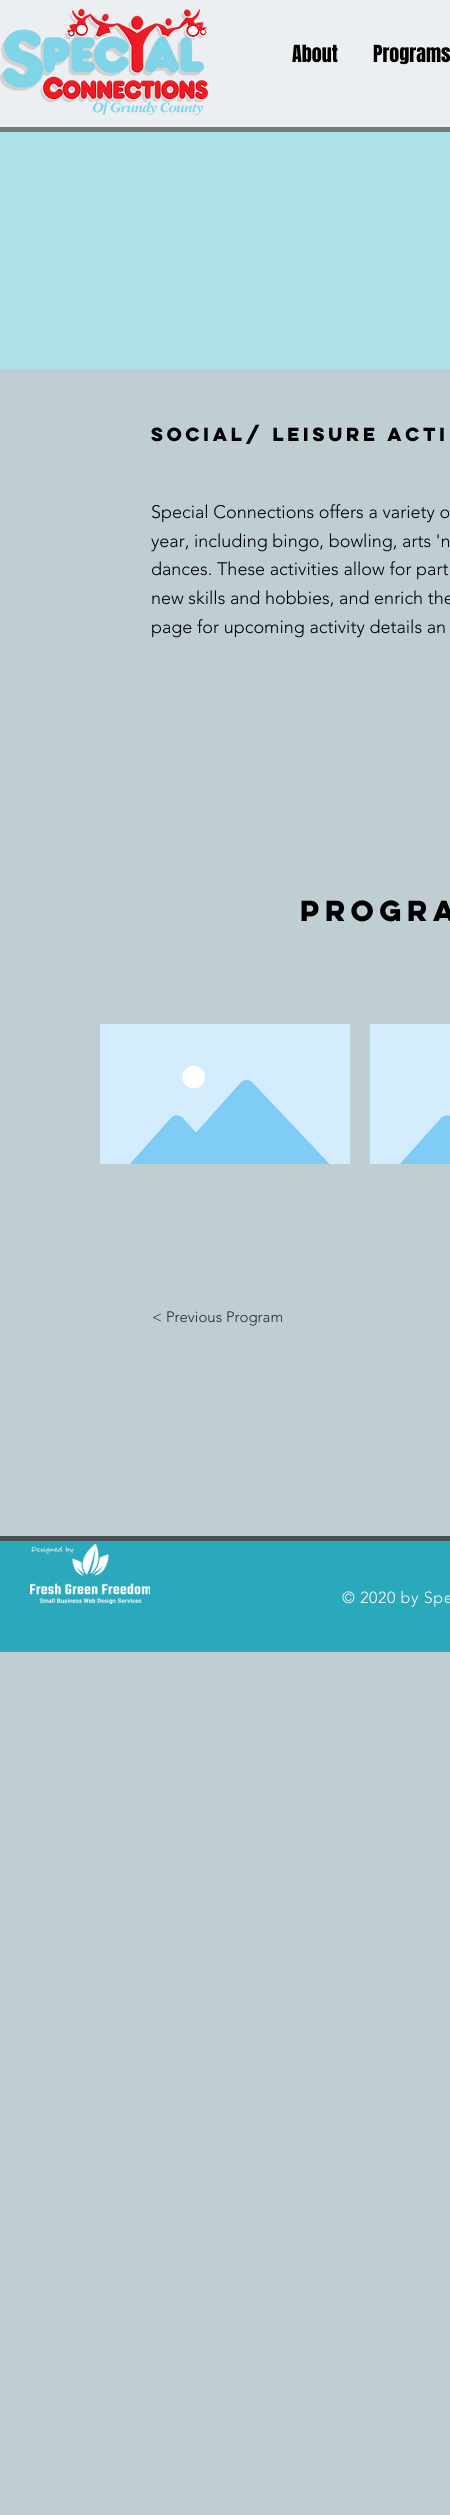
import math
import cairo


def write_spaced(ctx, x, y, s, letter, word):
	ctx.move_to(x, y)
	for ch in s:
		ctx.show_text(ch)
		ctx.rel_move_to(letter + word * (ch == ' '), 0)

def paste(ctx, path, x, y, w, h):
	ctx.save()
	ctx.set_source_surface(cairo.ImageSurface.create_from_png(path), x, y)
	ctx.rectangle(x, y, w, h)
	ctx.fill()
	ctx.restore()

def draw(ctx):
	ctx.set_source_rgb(0.745, 0.808, 0.827)
	ctx.paint()
	ctx.set_source_rgb(0.918, 0.937, 0.945)
	ctx.rectangle(0, 0, 450, 127)
	ctx.fill()
	paste(ctx, 'media/1.png', 0, 9, 208, 106)
	ctx.select_font_face('Anton')
	ctx.set_font_size(20)
	ctx.set_source_rgb(0, 0, 0)
	ctx.move_to(292, 62)
	ctx.show_text('About')
	ctx.move_to(373, 62)
	ctx.show_text('Programs')
	ctx.set_source_rgb(0.447, 0.486, 0.498)
	ctx.rectangle(0, 127, 450, 5)
	ctx.fill()
	ctx.set_source_rgb(0.675, 0.882, 0.914)
	ctx.rectangle(0, 132, 450, 237)
	ctx.fill()
	ctx.select_font_face('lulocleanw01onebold', cairo.FONT_SLANT_NORMAL, cairo.FONT_WEIGHT_BOLD)
	ctx.set_font_size(17)
	ctx.set_source_rgb(0, 0, 0)
	ctx.move_to(151, 441)
	ctx.show_text('Social/ Leisure Acti')
	ctx.select_font_face('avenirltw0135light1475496 Light')
	ctx.set_font_size(18)
	for x, y, s in [
		(151, 518, 'Special Connections offers a variety o'),
		(151, 547, 'year, including bingo, bowling, arts \'n'),
		(151, 575, 'dances. These activities allow for part'),
		(151, 604, 'new skills and hobbies, and enrich the'),
		(151, 633, 'page for upcoming activity details an'),
	]:
		ctx.move_to(x, y)
		ctx.show_text(s)
	ctx.select_font_face('lulocleanw01onebold', cairo.FONT_SLANT_NORMAL, cairo.FONT_WEIGHT_BOLD)
	ctx.set_font_size(26)
	ctx.move_to(300, 921)
	ctx.show_text('Progra')
	paste(ctx, 'media/2.png', 100, 1024, 250, 140)
	paste(ctx, 'media/3.png', 370, 1024, 80, 140)
	ctx.select_font_face('avenirltw0135light1475496 Light')
	ctx.set_font_size(15)
	ctx.set_source_rgb(0.149, 0.161, 0.165)
	ctx.move_to(152, 1322)
	ctx.show_text('< Previous Program')
	ctx.set_source_rgb(0.165, 0.663, 0.737)
	ctx.rectangle(0, 1541, 450, 111)
	ctx.fill()
	ctx.set_source_rgb(0.298, 0.322, 0.329)
	ctx.rectangle(0, 1536, 450, 5)
	ctx.fill()
	paste(ctx, 'media/4.png', 30, 1544, 120, 60)
	ctx.set_font_size(16)
	ctx.set_source_rgb(1, 1, 1)
	write_spaced(ctx, 342, 1603, '© 2020 by Spe', 0.6, 0)


surface = cairo.ImageSurface(cairo.FORMAT_RGB24, 450, 2515)
ctx = cairo.Context(surface)
options = cairo.FontOptions()
options.set_hint_metrics(cairo.HINT_METRICS_OFF)
options.set_hint_style(cairo.HINT_STYLE_NONE)
ctx.set_font_options(options)
ctx.set_miter_limit(4)
draw(ctx)
surface.write_to_png('image.png')
